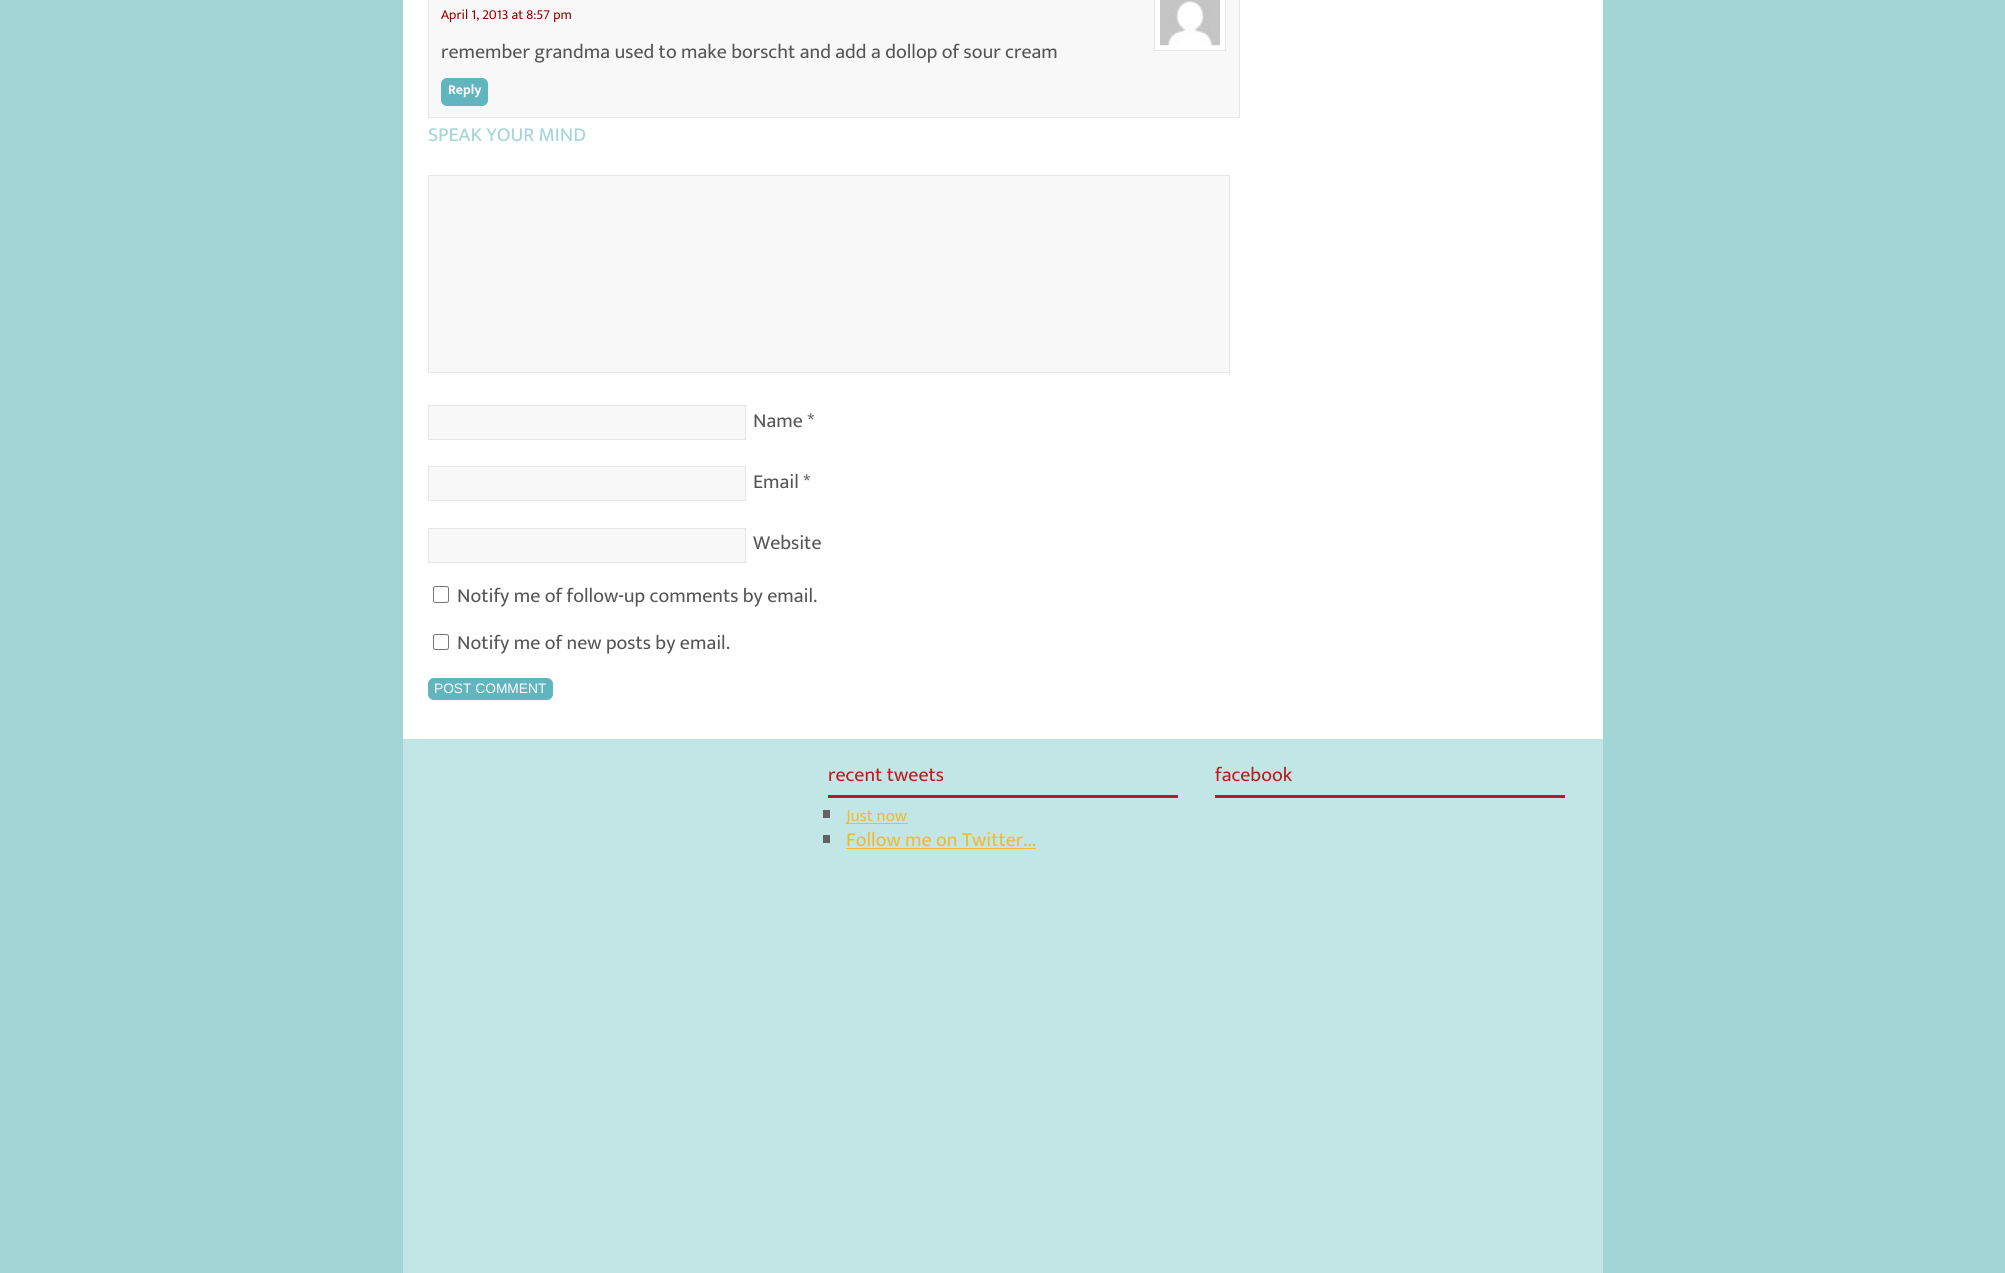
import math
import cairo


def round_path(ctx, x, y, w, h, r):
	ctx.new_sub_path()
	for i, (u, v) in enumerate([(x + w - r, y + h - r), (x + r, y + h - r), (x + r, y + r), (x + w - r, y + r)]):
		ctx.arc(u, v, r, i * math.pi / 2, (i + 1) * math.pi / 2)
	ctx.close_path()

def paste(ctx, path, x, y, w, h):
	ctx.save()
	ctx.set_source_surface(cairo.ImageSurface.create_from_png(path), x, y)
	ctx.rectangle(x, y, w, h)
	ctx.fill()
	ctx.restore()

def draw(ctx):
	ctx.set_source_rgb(0.643, 0.835, 0.839)
	ctx.paint()
	ctx.set_source_rgb(1, 1, 1)
	ctx.rectangle(403, 0, 1200, 739)
	ctx.fill()
	ctx.set_source_rgb(0.969, 0.969, 0.969)
	ctx.rectangle(428.5, -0.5, 811, 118)
	ctx.fill_preserve()
	ctx.set_source_rgb(0.902, 0.902, 0.902)
	ctx.set_line_width(1)
	ctx.stroke()
	ctx.select_font_face('Ek Mukta')
	ctx.set_font_size(13.75)
	ctx.set_source_rgb(0.6, 0, 0)
	ctx.move_to(441, 19)
	ctx.show_text('April 1, 2013 at 8:57 pm')
	ctx.set_source_rgb(1, 1, 1)
	ctx.rectangle(1154.5, -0.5, 71, 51)
	ctx.fill_preserve()
	ctx.set_source_rgb(0.902, 0.902, 0.902)
	ctx.stroke()
	paste(ctx, 'media/1.png', 1160, 0, 60, 46)
	ctx.set_font_size(20)
	ctx.set_source_rgb(0.333, 0.333, 0.333)
	ctx.move_to(441, 58)
	ctx.show_text('remember grandma used to make borscht and add a dollop of sour cream')
	ctx.set_source_rgb(0.376, 0.71, 0.749)
	round_path(ctx, 441, 78, 47, 28, 6)
	ctx.fill()
	ctx.select_font_face('Ek Mukta', cairo.FONT_SLANT_NORMAL, cairo.FONT_WEIGHT_BOLD)
	ctx.set_font_size(13.75)
	ctx.set_source_rgb(1, 1, 1)
	ctx.move_to(448, 94)
	ctx.show_text('Reply')
	ctx.select_font_face('Ek Mukta')
	ctx.set_font_size(20)
	ctx.set_source_rgb(0.643, 0.835, 0.839)
	ctx.move_to(428, 141)
	ctx.show_text('SPEAK YOUR MIND')
	ctx.set_source_rgb(0.969, 0.969, 0.969)
	ctx.rectangle(428.5, 175.5, 801, 197)
	ctx.fill_preserve()
	ctx.set_source_rgb(0.902, 0.902, 0.902)
	ctx.stroke()
	ctx.set_source_rgb(0.969, 0.969, 0.969)
	ctx.rectangle(428.5, 405.5, 317, 34)
	ctx.fill_preserve()
	ctx.set_source_rgb(0.902, 0.902, 0.902)
	ctx.stroke()
	ctx.set_source_rgb(0.333, 0.333, 0.333)
	ctx.move_to(753, 427)
	ctx.show_text('Name *')
	ctx.set_source_rgb(0.969, 0.969, 0.969)
	ctx.rectangle(428.5, 466.5, 317, 34)
	ctx.fill_preserve()
	ctx.set_source_rgb(0.902, 0.902, 0.902)
	ctx.stroke()
	ctx.set_source_rgb(0.333, 0.333, 0.333)
	ctx.move_to(753, 488)
	ctx.show_text('Email *')
	ctx.set_source_rgb(0.969, 0.969, 0.969)
	ctx.rectangle(428.5, 528.5, 317, 34)
	ctx.fill_preserve()
	ctx.set_source_rgb(0.902, 0.902, 0.902)
	ctx.stroke()
	ctx.set_source_rgb(0.333, 0.333, 0.333)
	ctx.move_to(753, 549)
	ctx.show_text('Website')
	round_path(ctx, 433.5, 586.5, 15, 16, 2)
	ctx.set_source_rgb(0.463, 0.463, 0.463)
	ctx.stroke()
	ctx.set_source_rgb(0.333, 0.333, 0.333)
	ctx.move_to(457, 602)
	ctx.show_text('Notify me of follow-up comments by email.')
	round_path(ctx, 433.5, 634.5, 15, 15, 2)
	ctx.set_source_rgb(0.463, 0.463, 0.463)
	ctx.stroke()
	ctx.set_source_rgb(0.333, 0.333, 0.333)
	ctx.move_to(457, 649)
	ctx.show_text('Notify me of new posts by email.')
	ctx.set_source_rgb(0.376, 0.71, 0.749)
	round_path(ctx, 428, 678, 125, 22, 6)
	ctx.fill()
	ctx.select_font_face('Liberation Sans')
	ctx.set_font_size(13.75)
	ctx.set_source_rgb(1, 1, 1)
	ctx.move_to(434, 693)
	ctx.show_text('POST COMMENT')
	ctx.set_source_rgb(0.761, 0.902, 0.898)
	ctx.rectangle(403, 739, 1200, 534)
	ctx.fill()
	ctx.set_source_rgb(0.718, 0.114, 0.114)
	ctx.rectangle(828, 795, 350, 3)
	ctx.fill()
	ctx.select_font_face('Ek Mukta')
	ctx.set_font_size(20)
	ctx.move_to(828, 781)
	ctx.show_text('recent tweets')
	ctx.set_source_rgb(0.38, 0.38, 0.38)
	ctx.rectangle(823, 810, 7, 8)
	ctx.fill()
	ctx.set_source_rgb(0.937, 0.725, 0.208)
	ctx.rectangle(846, 823, 62, 1)
	ctx.fill()
	ctx.set_font_size(17)
	ctx.move_to(846, 821)
	ctx.show_text('Just now')
	ctx.set_source_rgb(0.38, 0.38, 0.38)
	ctx.rectangle(823, 835, 7, 8)
	ctx.fill()
	ctx.set_font_size(20)
	ctx.set_source_rgb(0.937, 0.725, 0.208)
	ctx.move_to(846, 846)
	ctx.show_text('Follow me on Twitter...')
	ctx.rectangle(846, 848, 190, 1)
	ctx.fill()
	ctx.set_source_rgb(0.718, 0.114, 0.114)
	ctx.rectangle(1215, 795, 350, 3)
	ctx.fill()
	ctx.move_to(1215, 781)
	ctx.show_text('facebook')


surface = cairo.ImageSurface(cairo.FORMAT_RGB24, 2005, 1273)
ctx = cairo.Context(surface)
options = cairo.FontOptions()
options.set_hint_metrics(cairo.HINT_METRICS_OFF)
options.set_hint_style(cairo.HINT_STYLE_NONE)
ctx.set_font_options(options)
ctx.set_miter_limit(4)
draw(ctx)
surface.write_to_png('image.png')
